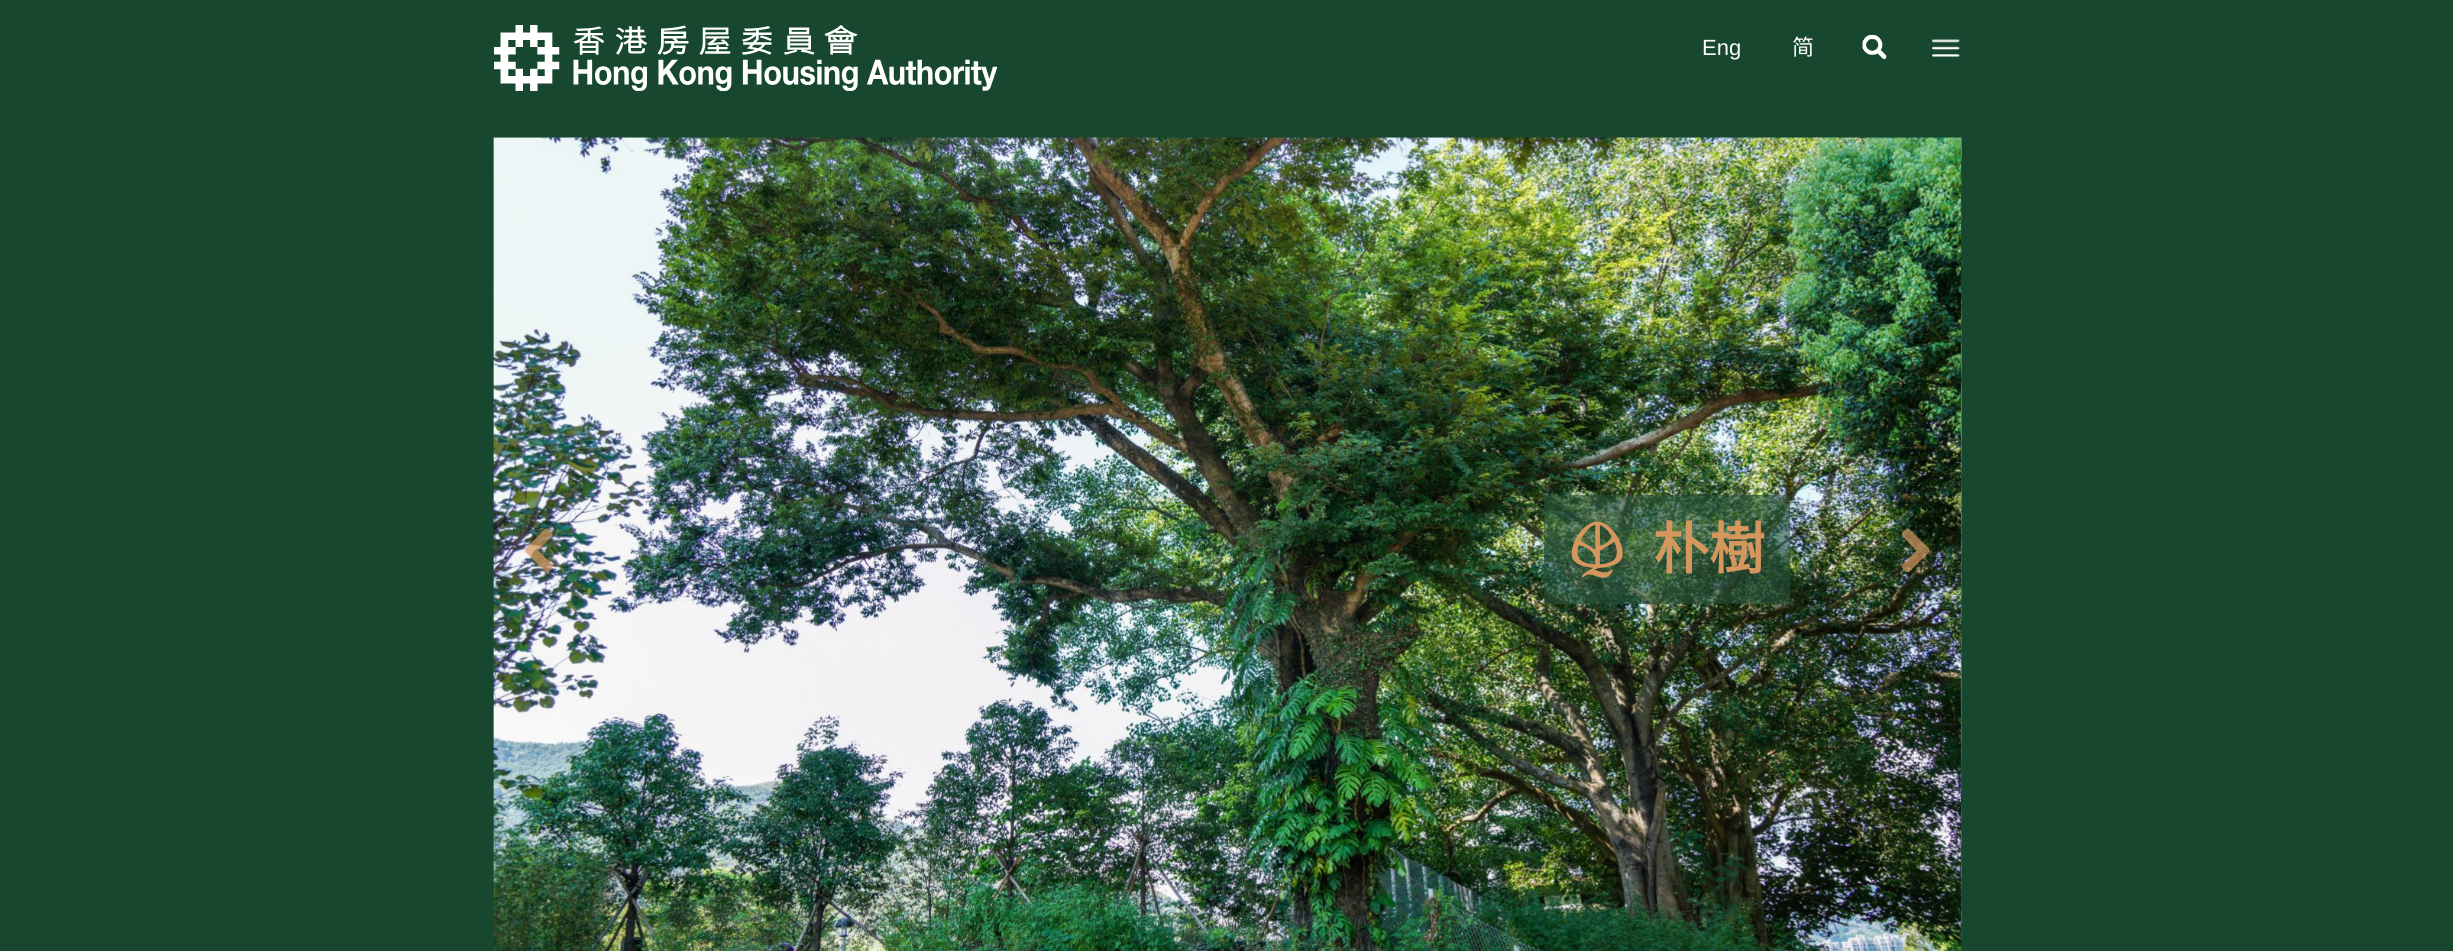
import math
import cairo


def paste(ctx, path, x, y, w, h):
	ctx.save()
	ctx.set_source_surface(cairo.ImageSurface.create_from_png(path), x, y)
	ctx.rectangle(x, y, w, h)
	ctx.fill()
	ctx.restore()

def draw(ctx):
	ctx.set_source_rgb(0.09, 0.278, 0.184)
	ctx.paint()
	paste(ctx, 'media/1.png', 494, 25, 504, 66)
	ctx.select_font_face('Liberation Sans')
	ctx.set_font_size(22)
	ctx.set_source_rgb(0.996, 0.996, 0.996)
	ctx.move_to(1702, 55)
	ctx.show_text('Eng')
	ctx.select_font_face('Noto Sans CJK HK')
	ctx.move_to(1792, 55)
	ctx.show_text('简')
	paste(ctx, 'media/2.png', 1862, 34, 25, 26)
	paste(ctx, 'media/3.png', 1932, 39, 28, 18)
	paste(ctx, 'media/4.png', 493, 137, 1468, 814)
	paste(ctx, 'media/5.png', 1960, 137, 2, 814)
	paste(ctx, 'media/6.png', 525, 528, 28, 44)
	paste(ctx, 'media/7.png', 1902, 528, 28, 45)
	ctx.set_source_rgba(0.145, 0.322, 0.235, 0.6)
	ctx.rectangle(1544, 495, 246, 109)
	ctx.fill()
	paste(ctx, 'media/8.png', 1571, 521, 52, 57)
	ctx.select_font_face('Noto Sans CJK HK', cairo.FONT_SLANT_NORMAL, cairo.FONT_WEIGHT_BOLD)
	ctx.set_font_size(56)
	ctx.set_source_rgb(0.835, 0.592, 0.369)
	ctx.move_to(1653, 569)
	ctx.show_text('朴樹')


surface = cairo.ImageSurface(cairo.FORMAT_RGB24, 2453, 951)
ctx = cairo.Context(surface)
options = cairo.FontOptions()
options.set_hint_metrics(cairo.HINT_METRICS_OFF)
options.set_hint_style(cairo.HINT_STYLE_NONE)
ctx.set_font_options(options)
ctx.set_miter_limit(4)
draw(ctx)
surface.write_to_png('image.png')
